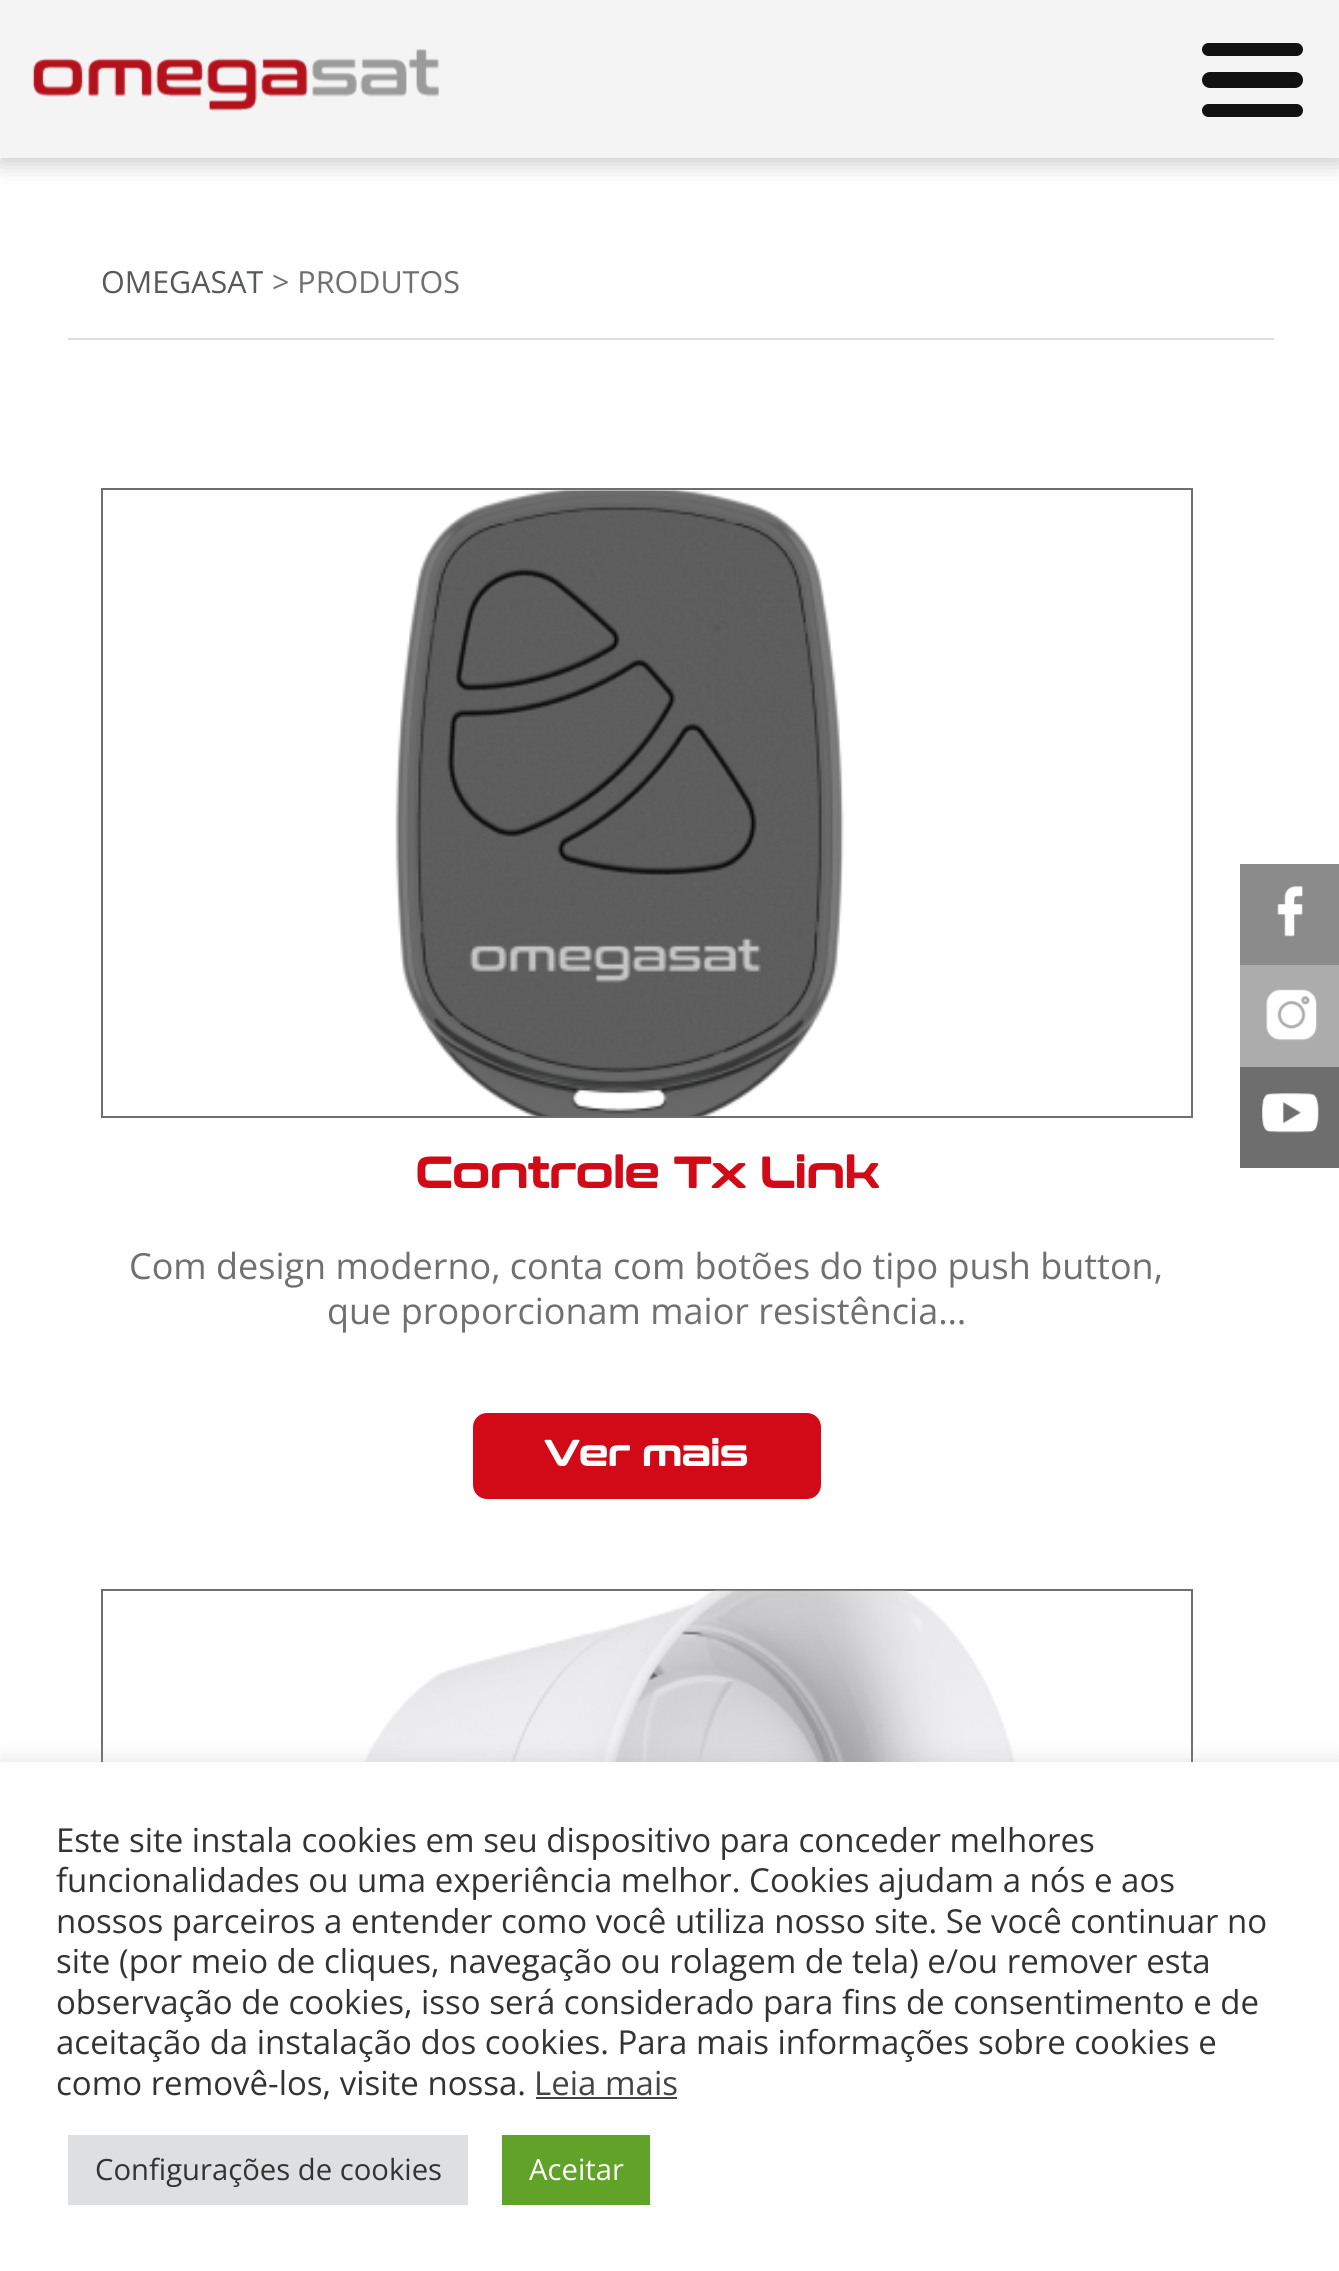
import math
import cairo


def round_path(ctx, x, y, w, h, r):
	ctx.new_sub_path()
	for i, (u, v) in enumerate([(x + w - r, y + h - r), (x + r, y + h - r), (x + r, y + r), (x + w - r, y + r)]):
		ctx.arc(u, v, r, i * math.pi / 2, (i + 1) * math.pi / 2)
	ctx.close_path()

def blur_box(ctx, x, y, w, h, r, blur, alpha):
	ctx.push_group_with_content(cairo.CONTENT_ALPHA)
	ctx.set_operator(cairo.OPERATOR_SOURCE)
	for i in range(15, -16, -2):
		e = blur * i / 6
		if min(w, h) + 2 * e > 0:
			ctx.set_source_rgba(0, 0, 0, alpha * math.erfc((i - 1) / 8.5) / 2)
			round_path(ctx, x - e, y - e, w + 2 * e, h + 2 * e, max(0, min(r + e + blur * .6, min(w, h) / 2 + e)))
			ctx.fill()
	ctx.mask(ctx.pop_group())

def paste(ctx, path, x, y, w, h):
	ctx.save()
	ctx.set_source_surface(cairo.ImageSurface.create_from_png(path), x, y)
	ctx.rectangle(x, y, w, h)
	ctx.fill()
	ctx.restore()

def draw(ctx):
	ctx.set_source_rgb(1, 1, 1)
	ctx.paint()
	ctx.set_source_rgb(0, 0, 0)
	blur_box(ctx, 0, 7, 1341, 157, 0, 11, 0.2)
	ctx.set_source_rgb(0.957, 0.957, 0.957)
	ctx.rectangle(0, 0, 1339, 158)
	ctx.fill()
	paste(ctx, 'media/1.png', 32, 49, 408, 62)
	ctx.set_source_rgb(0.067, 0.067, 0.067)
	round_path(ctx, 1202, 43, 101, 13, 6.5)
	ctx.fill()
	round_path(ctx, 1202, 72, 101, 16, 8)
	ctx.fill()
	round_path(ctx, 1202, 104, 101, 13, 6.5)
	ctx.fill()
	ctx.set_source_rgb(0.549, 0.545, 0.545)
	ctx.rectangle(1240, 864, 99, 101)
	ctx.fill()
	paste(ctx, 'media/2.png', 1277, 886, 26, 51)
	ctx.set_source_rgb(0.678, 0.675, 0.675)
	ctx.rectangle(1240, 965, 99, 102)
	ctx.fill()
	paste(ctx, 'media/3.png', 1266, 989, 51, 52)
	ctx.set_source_rgb(0.431, 0.431, 0.431)
	ctx.rectangle(1240, 1067, 99, 101)
	ctx.fill()
	paste(ctx, 'media/4.png', 1262, 1093, 57, 40)
	ctx.set_source_rgb(0.867, 0.867, 0.867)
	ctx.rectangle(68, 338, 1206, 2)
	ctx.fill()
	ctx.select_font_face('Open Sans')
	ctx.set_font_size(30.5)
	ctx.set_source_rgb(0.345, 0.349, 0.357)
	ctx.move_to(101, 293)
	ctx.show_text('OMEGASAT')
	ctx.set_source_rgb(0.439, 0.439, 0.439)
	ctx.move_to(272, 293)
	ctx.show_text('> PRODUTOS')
	ctx.rectangle(102, 489, 1090, 628)
	ctx.set_source_rgb(0.431, 0.431, 0.431)
	ctx.stroke()
	paste(ctx, 'media/5.png', 395, 490, 450, 626)
	ctx.select_font_face('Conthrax', cairo.FONT_SLANT_NORMAL, cairo.FONT_WEIGHT_BOLD)
	ctx.set_font_size(43.25)
	ctx.set_source_rgb(0.824, 0.039, 0.09)
	ctx.move_to(415, 1188)
	ctx.show_text('Controle Tx Link')
	ctx.select_font_face('Open Sans')
	ctx.set_font_size(36)
	ctx.set_source_rgb(0.439, 0.439, 0.439)
	ctx.move_to(129, 1279)
	ctx.show_text('Com design moderno, conta com botões do tipo push button,')
	ctx.move_to(327, 1324)
	ctx.show_text('que proporcionam maior resistência…')
	ctx.set_source_rgb(0.824, 0.039, 0.09)
	round_path(ctx, 473, 1413, 348, 86, 14)
	ctx.fill()
	ctx.select_font_face('Conthrax', cairo.FONT_SLANT_NORMAL, cairo.FONT_WEIGHT_BOLD)
	ctx.set_source_rgb(1, 1, 1)
	ctx.move_to(544, 1466)
	ctx.show_text('Ver mais')
	ctx.rectangle(102, 1590, 1090, 628)
	ctx.set_source_rgb(0.431, 0.431, 0.431)
	ctx.stroke()
	paste(ctx, 'media/6.png', 364, 1590, 652, 172)
	ctx.set_source_rgb(0.675, 0.671, 0.671)
	blur_box(ctx, 0, 1760, 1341, 510, 0, 11, 0.3)
	ctx.set_source_rgb(1, 1, 1)
	ctx.rectangle(0, 1762, 1339, 509)
	ctx.fill()
	ctx.select_font_face('Open Sans')
	ctx.set_font_size(33)
	ctx.set_source_rgb(0.2, 0.2, 0.2)
	for x, y, s in [
		(56, 1852, 'Este site instala cookies em seu dispositivo para conceder melhores'),
		(56, 1892, 'funcionalidades ou uma experiência melhor. Cookies ajudam a nós e aos'),
		(56, 1933, 'nossos parceiros a entender como você utiliza nosso site. Se você continuar no'),
		(56, 1973, 'site (por meio de cliques, navegação ou rolagem de tela) e/ou remover esta'),
		(56, 2014, 'observação de cookies, isso será considerado para fins de consentimento e de'),
		(56, 2054, 'aceitação da instalação dos cookies. Para mais informações sobre cookies e'),
		(56, 2095, 'como removê-los, visite nossa.'),
	]:
		ctx.move_to(x, y)
		ctx.show_text(s)
	ctx.set_source_rgb(0.267, 0.267, 0.267)
	ctx.move_to(534, 2095)
	ctx.show_text('Leia mais')
	ctx.rectangle(536, 2097, 141, 2)
	ctx.fill()
	ctx.set_source_rgb(0.871, 0.875, 0.878)
	ctx.rectangle(68, 2135, 400, 70)
	ctx.fill()
	ctx.set_font_size(29.25)
	ctx.set_source_rgb(0.2, 0.2, 0.2)
	ctx.move_to(95, 2180)
	ctx.show_text('Configurações de cookies')
	ctx.set_source_rgb(0.38, 0.635, 0.161)
	ctx.rectangle(502, 2135, 148, 70)
	ctx.fill()
	ctx.set_source_rgb(1, 1, 1)
	ctx.move_to(529, 2180)
	ctx.show_text('Aceitar')


surface = cairo.ImageSurface(cairo.FORMAT_RGB24, 1339, 2271)
ctx = cairo.Context(surface)
options = cairo.FontOptions()
options.set_hint_metrics(cairo.HINT_METRICS_OFF)
options.set_hint_style(cairo.HINT_STYLE_NONE)
ctx.set_font_options(options)
ctx.set_miter_limit(4)
draw(ctx)
surface.write_to_png('image.png')
